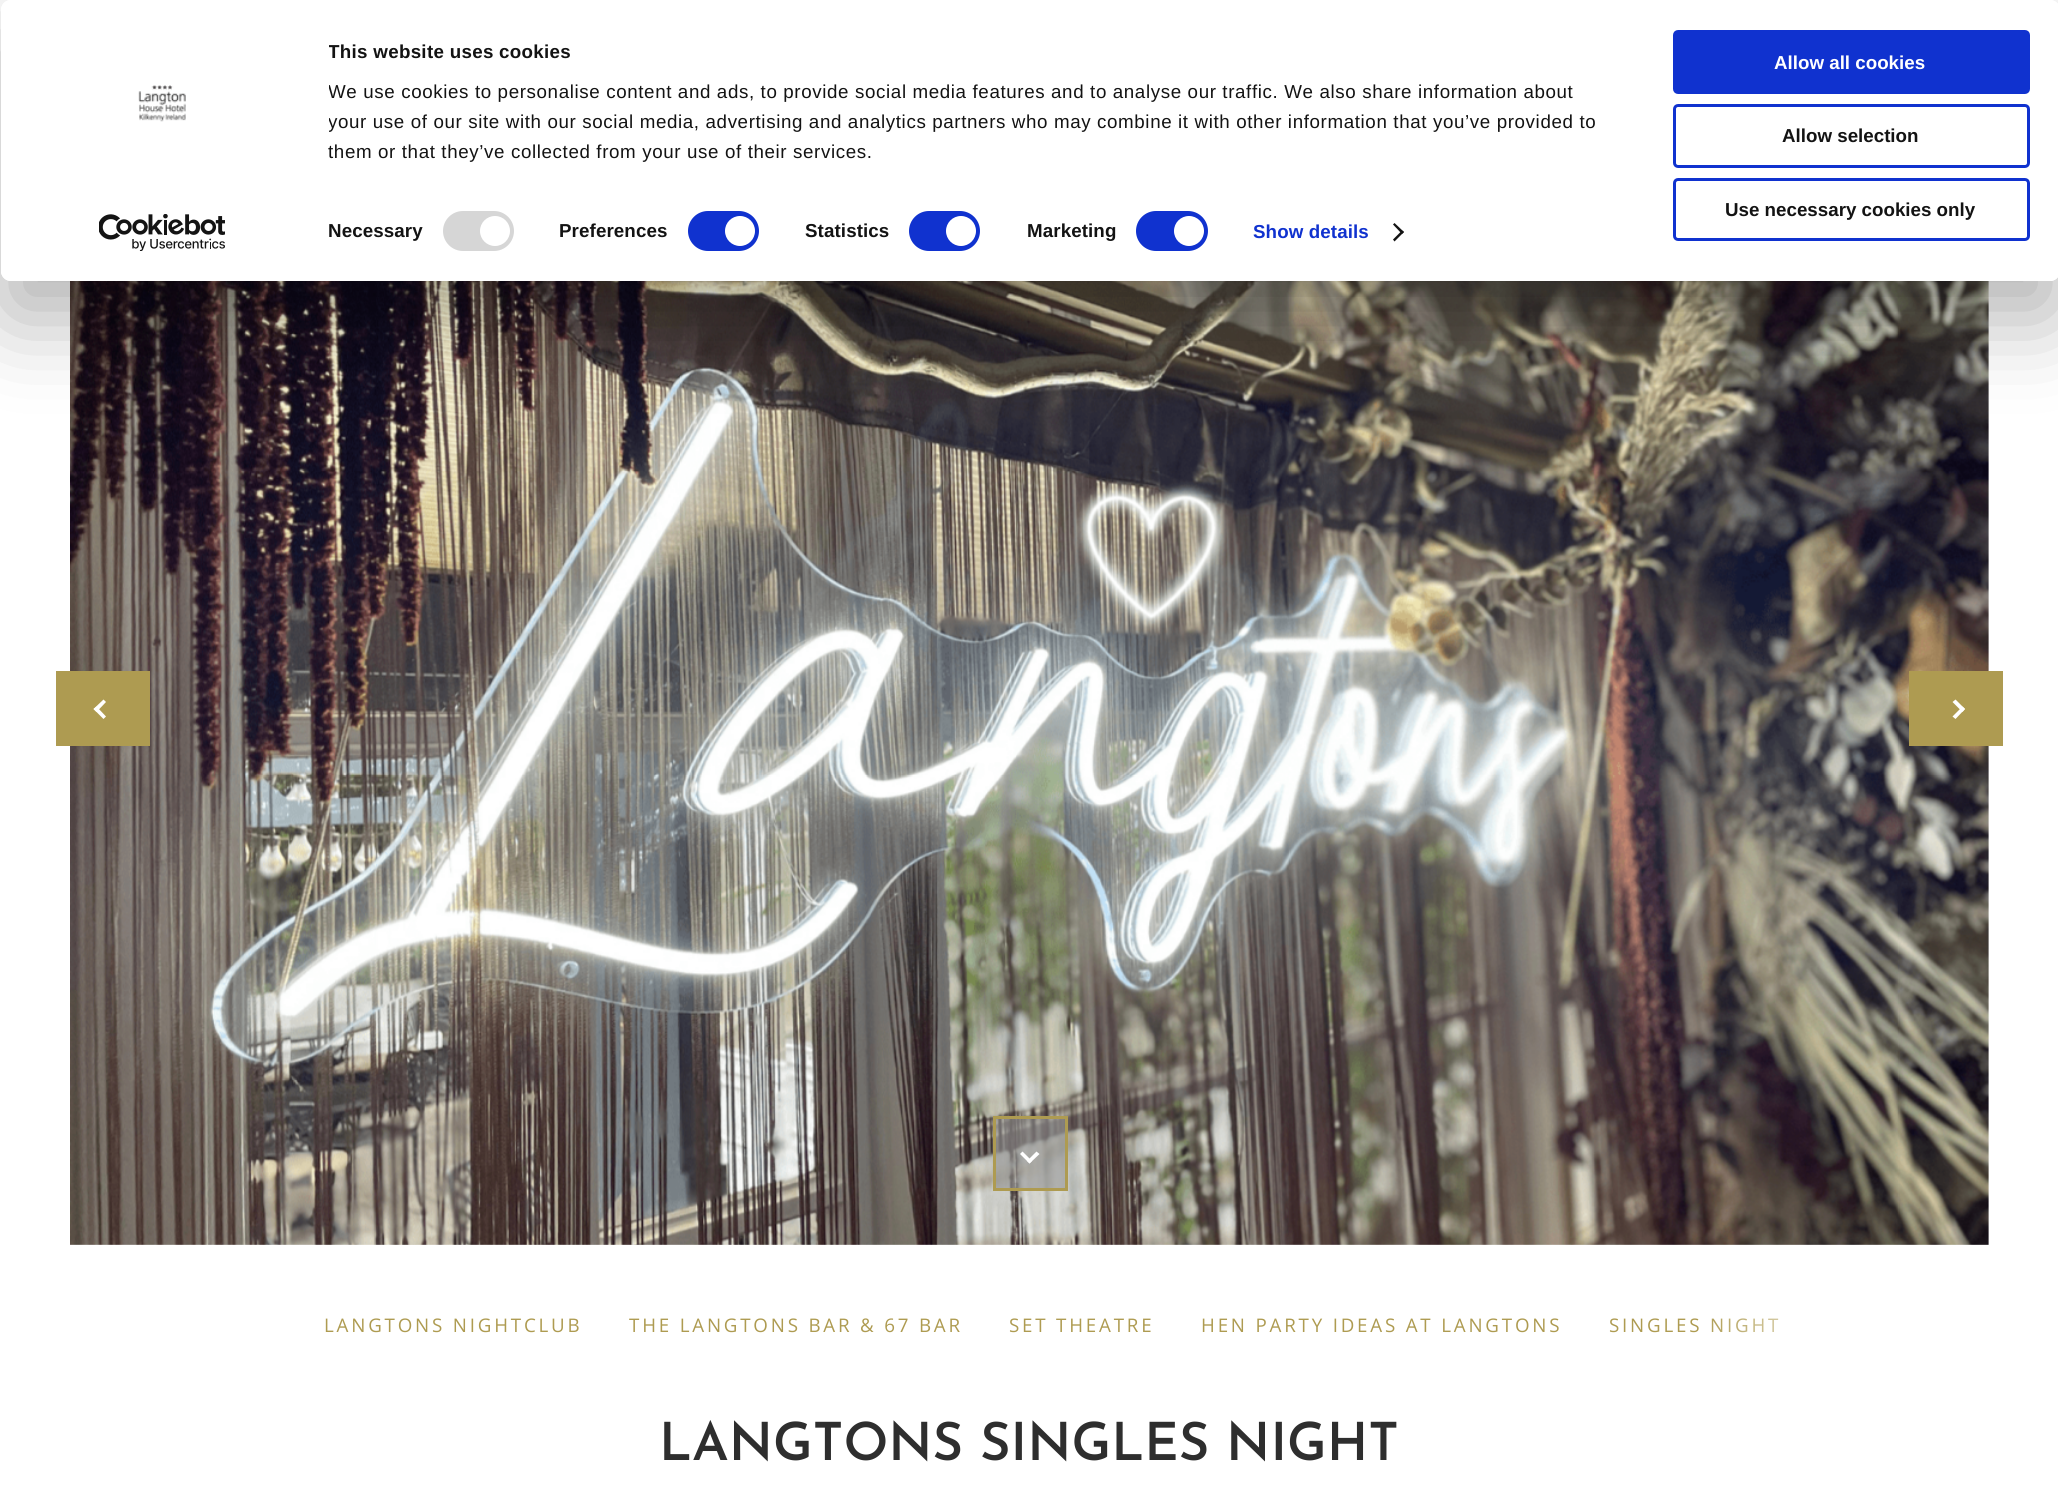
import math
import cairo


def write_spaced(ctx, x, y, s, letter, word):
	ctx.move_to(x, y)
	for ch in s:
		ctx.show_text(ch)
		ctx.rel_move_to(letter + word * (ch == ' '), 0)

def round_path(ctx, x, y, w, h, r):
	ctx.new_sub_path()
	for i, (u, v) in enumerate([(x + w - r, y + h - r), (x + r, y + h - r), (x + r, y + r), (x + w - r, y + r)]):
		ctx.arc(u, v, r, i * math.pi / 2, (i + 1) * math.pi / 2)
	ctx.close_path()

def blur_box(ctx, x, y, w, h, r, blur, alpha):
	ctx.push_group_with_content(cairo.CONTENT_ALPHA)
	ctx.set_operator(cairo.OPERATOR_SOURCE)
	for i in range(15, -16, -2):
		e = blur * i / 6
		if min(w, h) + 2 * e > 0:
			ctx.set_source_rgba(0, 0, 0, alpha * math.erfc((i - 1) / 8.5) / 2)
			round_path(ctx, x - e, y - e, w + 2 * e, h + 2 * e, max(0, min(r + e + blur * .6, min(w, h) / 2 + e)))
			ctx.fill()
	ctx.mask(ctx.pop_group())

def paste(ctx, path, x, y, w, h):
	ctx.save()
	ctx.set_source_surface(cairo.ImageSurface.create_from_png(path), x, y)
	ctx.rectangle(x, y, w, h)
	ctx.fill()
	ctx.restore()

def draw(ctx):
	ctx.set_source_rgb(1, 1, 1)
	ctx.paint()
	paste(ctx, 'media/3.png', 70, 281, 1919, 964)
	ctx.save()
	ctx.set_fill_rule(cairo.FILL_RULE_EVEN_ODD)
	ctx.new_path()
	ctx.move_to(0, 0)
	ctx.line_to(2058, 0)
	ctx.line_to(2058, 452)
	ctx.line_to(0, 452)
	ctx.close_path()
	ctx.move_to(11, 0)
	ctx.line_to(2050, 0)
	ctx.curve_to(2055.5, 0, 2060, 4.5, 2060, 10)
	ctx.line_to(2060, 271)
	ctx.curve_to(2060, 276.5, 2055.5, 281, 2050, 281)
	ctx.line_to(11, 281)
	ctx.curve_to(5.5, 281, 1, 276.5, 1, 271)
	ctx.line_to(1, 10)
	ctx.curve_to(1, 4.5, 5.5, 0, 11, 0)
	ctx.close_path()
	ctx.clip()
	ctx.set_source_rgb(0, 0, 0)
	blur_box(ctx, 1, 38, 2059, 281, 10, 44, 0.3)
	ctx.restore()
	ctx.set_source_rgb(1, 1, 1)
	round_path(ctx, 1, 0, 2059, 281, 10)
	ctx.fill()
	paste(ctx, 'media/1.png', 138, 85, 48, 37)
	paste(ctx, 'media/2.png', 99, 214, 126, 37)
	ctx.save()
	ctx.rectangle(329, 38, 1307, 128)
	ctx.clip()
	ctx.select_font_face('Liberation Sans', cairo.FONT_SLANT_NORMAL, cairo.FONT_WEIGHT_BOLD)
	ctx.set_font_size(18.75)
	ctx.set_source_rgb(0.078, 0.078, 0.078)
	write_spaced(ctx, 328, 58, 'This website uses cookies', 0.3, 0)
	ctx.select_font_face('Liberation Sans')
	write_spaced(ctx, 328, 98, 'We use cookies to personalise content and ads, to provide social media features and to analyse our traffic. We also share information about', 0.62, 0)
	write_spaced(ctx, 328, 128, 'your use of our site with our social media, advertising and analytics partners who may combine it with other information that you’ve provided to', 0.62, 0)
	ctx.restore()
	ctx.select_font_face('Liberation Sans')
	ctx.set_font_size(18.75)
	ctx.set_source_rgb(0.078, 0.078, 0.078)
	write_spaced(ctx, 328, 158, 'them or that they’ve collected from your use of their services.', 0.62, 0)
	ctx.select_font_face('Liberation Sans', cairo.FONT_SLANT_NORMAL, cairo.FONT_WEIGHT_BOLD)
	write_spaced(ctx, 328, 237, 'Necessary', 0.1, 0)
	ctx.set_source_rgb(0.839, 0.839, 0.839)
	round_path(ctx, 443, 211, 71, 40, 20)
	ctx.fill()
	ctx.set_source_rgb(1, 1, 1)
	ctx.arc(495, 231, 15, 0, 2 * math.pi)
	ctx.fill()
	ctx.set_source_rgb(0.078, 0.078, 0.078)
	write_spaced(ctx, 559, 237, 'Preferences', 0.1, 0)
	ctx.set_source_rgb(0.063, 0.196, 0.812)
	round_path(ctx, 688, 211, 71, 40, 20)
	ctx.fill()
	ctx.set_source_rgb(1, 1, 1)
	ctx.arc(740, 231, 15, 0, 2 * math.pi)
	ctx.fill()
	ctx.set_source_rgb(0.078, 0.078, 0.078)
	write_spaced(ctx, 805, 237, 'Statistics', 0.1, 0)
	ctx.set_source_rgb(0.063, 0.196, 0.812)
	round_path(ctx, 909, 211, 71, 40, 20)
	ctx.fill()
	ctx.set_source_rgb(1, 1, 1)
	ctx.arc(961, 231, 15, 0, 2 * math.pi)
	ctx.fill()
	ctx.set_source_rgb(0.078, 0.078, 0.078)
	write_spaced(ctx, 1027, 237, 'Marketing', 0.1, 0)
	ctx.set_source_rgb(0.063, 0.196, 0.812)
	round_path(ctx, 1136, 211, 72, 40, 20)
	ctx.fill()
	ctx.set_source_rgb(1, 1, 1)
	ctx.arc(1189, 231, 15, 0, 2 * math.pi)
	ctx.fill()
	ctx.set_source_rgb(0.063, 0.196, 0.812)
	write_spaced(ctx, 1253, 238, 'Show details', 0.1, 0)
	ctx.set_source_rgb(0.078, 0.078, 0.078)
	ctx.new_path()
	ctx.move_to(1394.5, 223)
	ctx.line_to(1404, 232)
	ctx.line_to(1402, 234)
	ctx.line_to(1393, 224.5)
	ctx.close_path()
	ctx.fill()
	ctx.new_path()
	ctx.move_to(1402, 230.5)
	ctx.line_to(1404, 232)
	ctx.line_to(1394.5, 241.5)
	ctx.line_to(1393, 239.5)
	ctx.close_path()
	ctx.fill()
	ctx.set_source_rgb(0.063, 0.196, 0.812)
	round_path(ctx, 1674.5, 31.5, 354, 61, 3.5)
	ctx.fill_preserve()
	ctx.set_line_width(3)
	ctx.stroke()
	ctx.set_source_rgb(1, 1, 1)
	ctx.move_to(1774, 69)
	ctx.show_text('Allow all cookies')
	round_path(ctx, 1674.5, 105.5, 354, 61, 3.5)
	ctx.set_source_rgb(0.063, 0.196, 0.812)
	ctx.stroke()
	ctx.set_source_rgb(0.078, 0.078, 0.078)
	ctx.move_to(1782, 142)
	ctx.show_text('Allow selection')
	round_path(ctx, 1674.5, 179.5, 354, 60, 3.5)
	ctx.set_source_rgb(0.063, 0.196, 0.812)
	ctx.stroke()
	ctx.set_source_rgb(0.078, 0.078, 0.078)
	ctx.move_to(1725, 216)
	ctx.show_text('Use necessary cookies only')
	ctx.set_source_rgba(0.573, 0.573, 0.573, 0.6)
	ctx.rectangle(994.5, 1117.5, 72, 72)
	ctx.fill_preserve()
	ctx.set_source_rgb(0.682, 0.608, 0.318)
	ctx.stroke()
	ctx.set_source_rgb(1, 1, 1)
	ctx.new_path()
	ctx.move_to(1027, 1161)
	ctx.line_to(1036.5, 1151.5)
	ctx.line_to(1039.5, 1154)
	ctx.line_to(1029.5, 1163.5)
	ctx.close_path()
	ctx.fill()
	ctx.new_path()
	ctx.move_to(1020, 1154)
	ctx.line_to(1022.5, 1151.5)
	ctx.line_to(1032, 1161)
	ctx.line_to(1029.5, 1163.5)
	ctx.close_path()
	ctx.fill()
	ctx.set_source_rgb(0.682, 0.608, 0.318)
	ctx.rectangle(56, 671, 94, 75)
	ctx.fill()
	ctx.set_source_rgb(1, 1, 1)
	ctx.new_path()
	ctx.move_to(96.5, 706.5)
	ctx.line_to(106, 716.5)
	ctx.line_to(103.5, 719)
	ctx.line_to(93.5, 709)
	ctx.close_path()
	ctx.fill()
	ctx.new_path()
	ctx.move_to(103.5, 699.5)
	ctx.line_to(106, 702)
	ctx.line_to(96.5, 712)
	ctx.line_to(93.5, 709)
	ctx.close_path()
	ctx.fill()
	ctx.set_source_rgb(0.682, 0.608, 0.318)
	ctx.rectangle(1909, 671, 94, 75)
	ctx.fill()
	ctx.set_source_rgb(1, 1, 1)
	ctx.new_path()
	ctx.move_to(1962.5, 706.5)
	ctx.line_to(1952.5, 716.5)
	ctx.line_to(1955.5, 719)
	ctx.line_to(1965, 709)
	ctx.close_path()
	ctx.fill()
	ctx.new_path()
	ctx.move_to(1955.5, 699.5)
	ctx.line_to(1952.5, 702)
	ctx.line_to(1962.5, 712)
	ctx.line_to(1965, 709)
	ctx.close_path()
	ctx.fill()
	ctx.select_font_face('Open Sans')
	ctx.set_source_rgb(0.682, 0.608, 0.318)
	for x, y, s in [
		(324, 1332, 'LANGTONS NIGHTCLUB'),
		(629, 1332, 'THE LANGTONS BAR & 67 BAR'),
		(1009, 1332, 'SET THEATRE'),
		(1201, 1332, 'HEN PARTY IDEAS AT LANGTONS'),
		(1609, 1332, 'SINGLES NIGHT'),
	]:
		write_spaced(ctx, x, y, s, 2.8, 0)
	gradient = cairo.LinearGradient(1989, 1325, 1030, 1325)
	gradient.add_color_stop_rgba(0.12, 1, 1, 1, 1)
	gradient.add_color_stop_rgba(0.3, 1, 1, 1, 0)
	ctx.set_source(gradient)
	ctx.rectangle(1712, 1318, 67, 15)
	ctx.fill()
	ctx.select_font_face('Josefin Sans SemiBold')
	ctx.set_font_size(52.5)
	ctx.set_source_rgb(0.18, 0.18, 0.18)
	ctx.move_to(659, 1460)
	ctx.show_text('LANGTONS SINGLES NIGHT')


surface = cairo.ImageSurface(cairo.FORMAT_RGB24, 2058, 1494)
ctx = cairo.Context(surface)
options = cairo.FontOptions()
options.set_hint_metrics(cairo.HINT_METRICS_OFF)
options.set_hint_style(cairo.HINT_STYLE_NONE)
ctx.set_font_options(options)
ctx.set_miter_limit(4)
draw(ctx)
surface.write_to_png('image.png')
